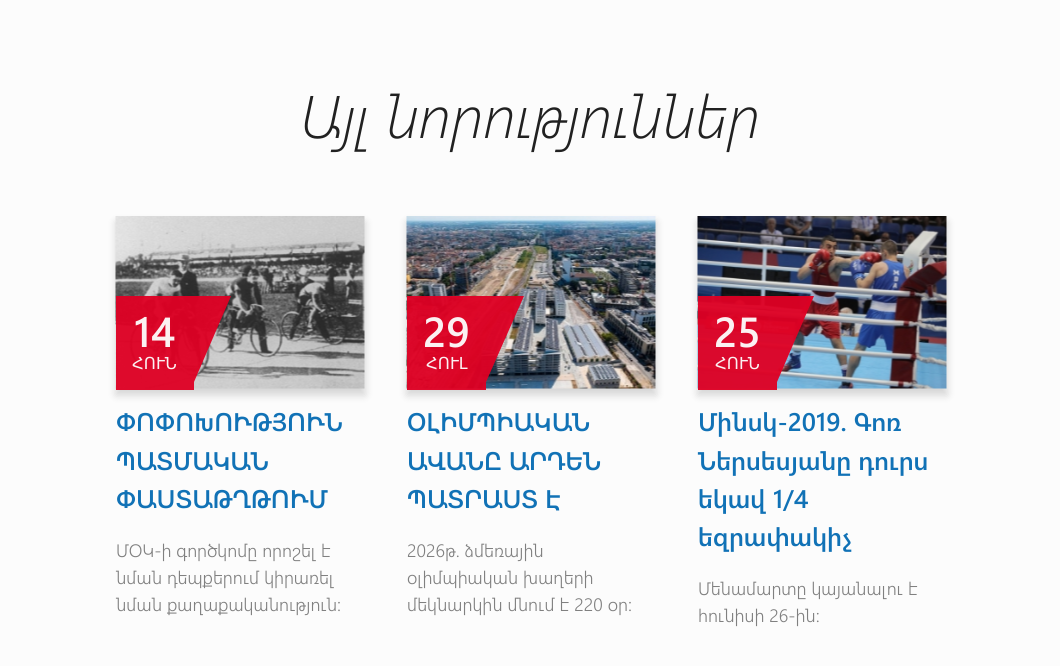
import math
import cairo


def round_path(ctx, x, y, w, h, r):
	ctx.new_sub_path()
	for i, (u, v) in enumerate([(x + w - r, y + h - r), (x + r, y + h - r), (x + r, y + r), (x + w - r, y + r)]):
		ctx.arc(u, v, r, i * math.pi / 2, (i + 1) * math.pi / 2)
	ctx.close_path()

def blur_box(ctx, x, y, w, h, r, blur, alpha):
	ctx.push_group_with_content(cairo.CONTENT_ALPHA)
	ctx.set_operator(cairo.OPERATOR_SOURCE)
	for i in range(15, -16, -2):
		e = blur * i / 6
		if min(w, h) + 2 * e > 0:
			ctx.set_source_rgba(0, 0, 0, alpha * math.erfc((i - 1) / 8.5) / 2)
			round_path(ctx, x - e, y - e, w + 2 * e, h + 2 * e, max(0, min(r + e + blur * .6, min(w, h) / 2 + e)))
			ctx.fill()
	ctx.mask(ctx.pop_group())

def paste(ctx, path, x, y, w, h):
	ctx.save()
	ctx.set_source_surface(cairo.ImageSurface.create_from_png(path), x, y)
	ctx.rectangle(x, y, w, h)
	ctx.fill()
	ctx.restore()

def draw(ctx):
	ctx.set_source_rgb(0.988, 0.988, 0.988)
	ctx.paint()
	ctx.select_font_face('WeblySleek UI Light', cairo.FONT_SLANT_ITALIC)
	ctx.set_font_size(60)
	ctx.set_source_rgb(0.129, 0.129, 0.129)
	ctx.move_to(300, 138)
	ctx.show_text('Այլ նորություններ')
	ctx.set_source_rgb(0, 0, 0)
	blur_box(ctx, 116, 222, 249, 173, 0, 4.5, 0.16)
	paste(ctx, 'media/1.png', 115, 216, 250, 173)
	ctx.set_source_rgba(0.875, 0, 0.141, 0.95)
	ctx.rectangle(116, 296, 78, 94)
	ctx.fill()
	ctx.select_font_face('WeblySleek UI SemiBold')
	ctx.set_font_size(42)
	ctx.set_source_rgb(0.984, 0.945, 0.949)
	ctx.move_to(134, 347)
	ctx.show_text('14')
	ctx.set_source_rgba(0.875, 0, 0.141, 0.95)
	ctx.new_path()
	ctx.move_to(194, 296)
	ctx.line_to(231, 296)
	ctx.line_to(194, 382)
	ctx.close_path()
	ctx.fill()
	ctx.select_font_face('DejaVu Sans')
	ctx.set_font_size(16.5)
	ctx.set_source_rgb(0.984, 0.945, 0.949)
	ctx.move_to(132, 369)
	ctx.show_text('ՀՈՒՆ')
	ctx.select_font_face('WeblySleek UI SemiBold')
	ctx.set_font_size(25.5)
	ctx.set_source_rgb(0.067, 0.447, 0.714)
	for x, y, s in [
		(116, 431, 'ՓՈՓՈԽՈՒԹՅՈՒՆ'),
		(116, 470, 'ՊԱՏՄԱԿԱՆ'),
		(116, 508, 'ՓԱՍՏԱԹՂԹՈՒՄ'),
	]:
		ctx.move_to(x, y)
		ctx.show_text(s)
	ctx.select_font_face('WeblySleek UI Light')
	ctx.set_font_size(18)
	ctx.set_source_rgb(0.502, 0.502, 0.502)
	for x, y, s in [
		(116, 557, 'ՄՕԿ-ի գործկոմը որոշել է'),
		(116, 584, 'նման դեպքերում կիրառել'),
		(116, 611, 'նման քաղաքականություն:'),
	]:
		ctx.move_to(x, y)
		ctx.show_text(s)
	ctx.set_source_rgb(0, 0, 0)
	blur_box(ctx, 407, 222, 249, 173, 0, 4.5, 0.16)
	paste(ctx, 'media/2.png', 406, 216, 250, 173)
	ctx.set_source_rgba(0.875, 0, 0.141, 0.95)
	ctx.rectangle(407, 296, 79, 94)
	ctx.fill()
	ctx.select_font_face('WeblySleek UI SemiBold')
	ctx.set_font_size(42)
	ctx.set_source_rgb(0.984, 0.945, 0.949)
	ctx.move_to(423, 347)
	ctx.show_text('29')
	ctx.set_source_rgba(0.875, 0, 0.141, 0.95)
	ctx.new_path()
	ctx.move_to(486, 296)
	ctx.line_to(524, 296)
	ctx.line_to(486, 382)
	ctx.close_path()
	ctx.fill()
	ctx.select_font_face('DejaVu Sans')
	ctx.set_font_size(16.5)
	ctx.set_source_rgb(0.984, 0.945, 0.949)
	ctx.move_to(426, 369)
	ctx.show_text('ՀՈՒԼ')
	ctx.select_font_face('WeblySleek UI SemiBold')
	ctx.set_font_size(25.5)
	ctx.set_source_rgb(0.067, 0.447, 0.714)
	for x, y, s in [
		(407, 431, 'ՕԼԻՄՊԻԱԿԱՆ'),
		(407, 470, 'ԱՎԱՆԸ ԱՐԴԵՆ'),
		(407, 508, 'ՊԱՏՐԱՍՏ Է'),
	]:
		ctx.move_to(x, y)
		ctx.show_text(s)
	ctx.select_font_face('WeblySleek UI Light')
	ctx.set_font_size(18)
	ctx.set_source_rgb(0.502, 0.502, 0.502)
	for x, y, s in [
		(407, 557, '2026թ. ձմեռային'),
		(407, 584, 'օլիմպիական խաղերի'),
		(407, 611, 'մեկնարկին մնում է 220 օր:'),
	]:
		ctx.move_to(x, y)
		ctx.show_text(s)
	ctx.set_source_rgb(0, 0, 0)
	blur_box(ctx, 698, 222, 249, 173, 0, 4.5, 0.16)
	paste(ctx, 'media/3.png', 697, 216, 250, 173)
	ctx.set_source_rgba(0.875, 0, 0.141, 0.95)
	ctx.rectangle(698, 296, 79, 94)
	ctx.fill()
	ctx.select_font_face('WeblySleek UI SemiBold')
	ctx.set_font_size(42)
	ctx.set_source_rgb(0.984, 0.945, 0.949)
	ctx.move_to(714, 347)
	ctx.show_text('25')
	ctx.set_source_rgba(0.875, 0, 0.141, 0.95)
	ctx.new_path()
	ctx.move_to(777, 296)
	ctx.line_to(814, 296)
	ctx.line_to(777, 382)
	ctx.close_path()
	ctx.fill()
	ctx.select_font_face('DejaVu Sans')
	ctx.set_font_size(16.5)
	ctx.set_source_rgb(0.984, 0.945, 0.949)
	ctx.move_to(715, 369)
	ctx.show_text('ՀՈՒՆ')
	ctx.select_font_face('WeblySleek UI SemiBold')
	ctx.set_font_size(25.5)
	ctx.set_source_rgb(0.067, 0.447, 0.714)
	for x, y, s in [
		(698, 431, 'Մինսկ-2019. Գոռ'),
		(698, 470, 'Ներսեսյանը դուրս'),
		(698, 508, 'եկավ 1/4'),
		(698, 546, 'եզրափակիչ'),
	]:
		ctx.move_to(x, y)
		ctx.show_text(s)
	ctx.select_font_face('WeblySleek UI Light')
	ctx.set_font_size(18)
	ctx.set_source_rgb(0.502, 0.502, 0.502)
	ctx.move_to(698, 595)
	ctx.show_text('Մենամարտը կայանալու է')
	ctx.move_to(698, 622)
	ctx.show_text('հունիսի 26-ին:')


surface = cairo.ImageSurface(cairo.FORMAT_RGB24, 1060, 666)
ctx = cairo.Context(surface)
options = cairo.FontOptions()
options.set_hint_metrics(cairo.HINT_METRICS_OFF)
options.set_hint_style(cairo.HINT_STYLE_NONE)
ctx.set_font_options(options)
ctx.set_miter_limit(4)
draw(ctx)
surface.write_to_png('image.png')
